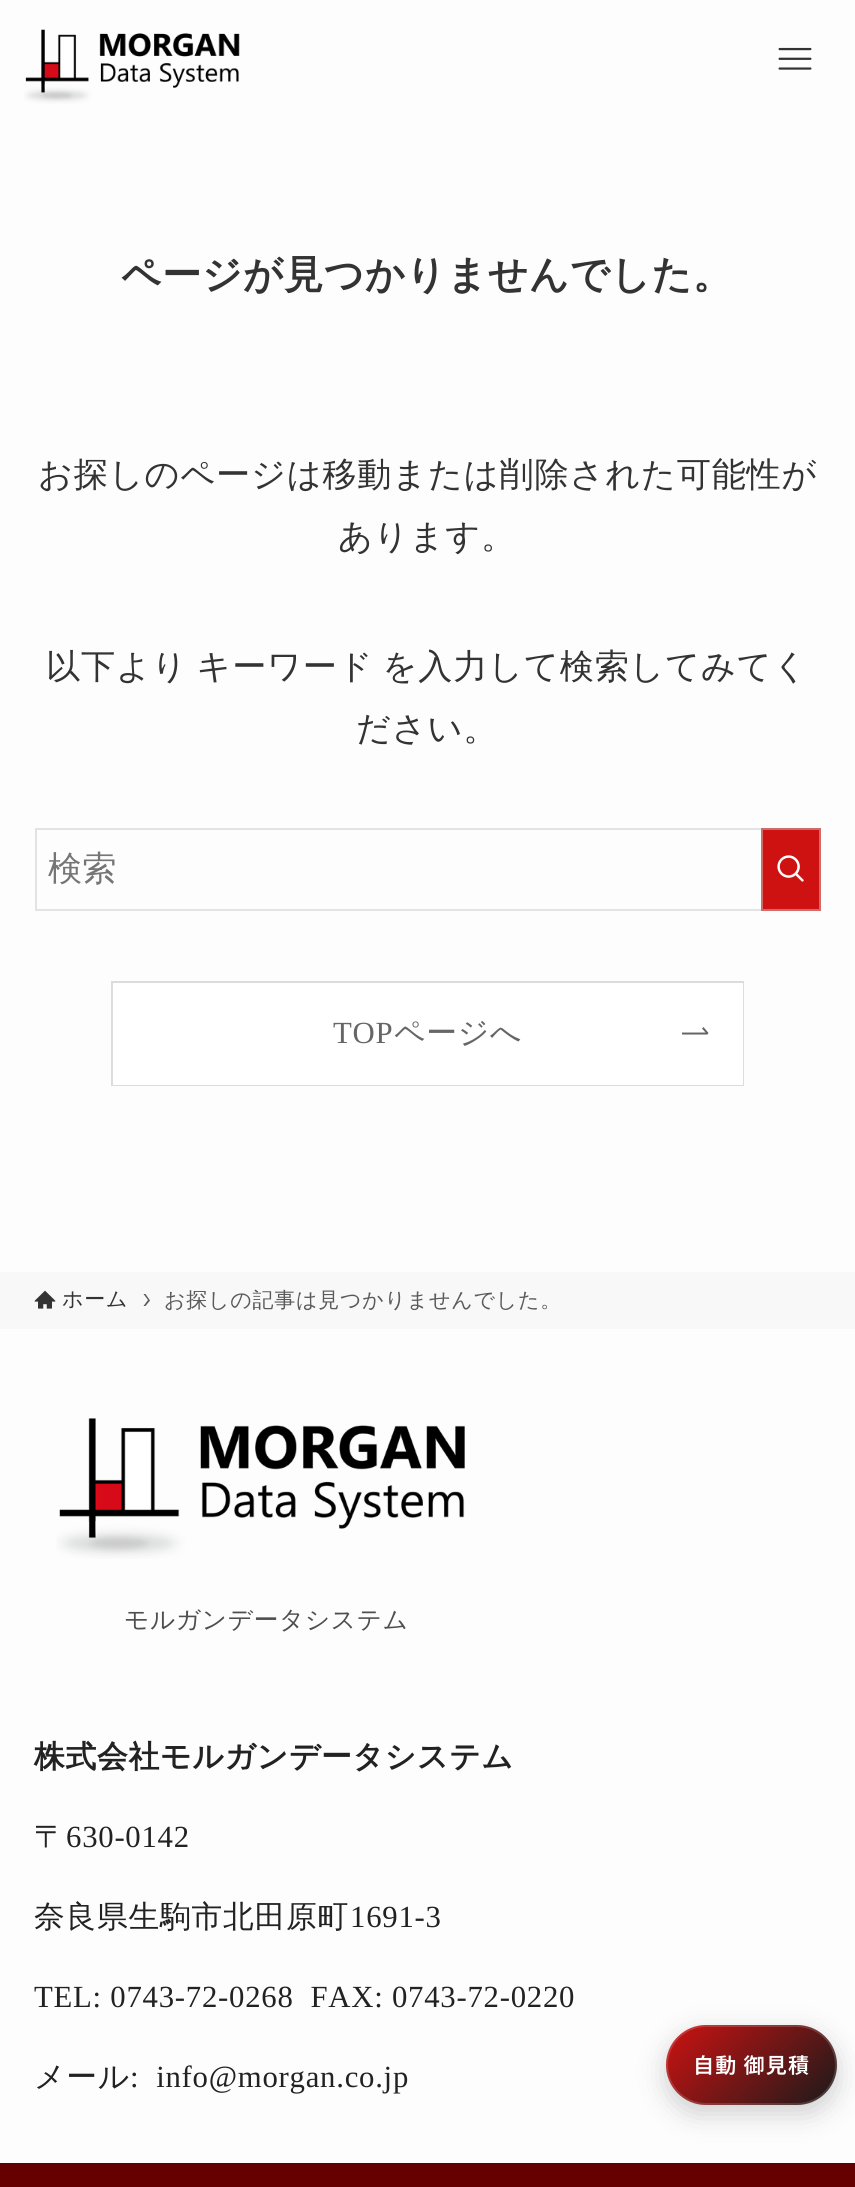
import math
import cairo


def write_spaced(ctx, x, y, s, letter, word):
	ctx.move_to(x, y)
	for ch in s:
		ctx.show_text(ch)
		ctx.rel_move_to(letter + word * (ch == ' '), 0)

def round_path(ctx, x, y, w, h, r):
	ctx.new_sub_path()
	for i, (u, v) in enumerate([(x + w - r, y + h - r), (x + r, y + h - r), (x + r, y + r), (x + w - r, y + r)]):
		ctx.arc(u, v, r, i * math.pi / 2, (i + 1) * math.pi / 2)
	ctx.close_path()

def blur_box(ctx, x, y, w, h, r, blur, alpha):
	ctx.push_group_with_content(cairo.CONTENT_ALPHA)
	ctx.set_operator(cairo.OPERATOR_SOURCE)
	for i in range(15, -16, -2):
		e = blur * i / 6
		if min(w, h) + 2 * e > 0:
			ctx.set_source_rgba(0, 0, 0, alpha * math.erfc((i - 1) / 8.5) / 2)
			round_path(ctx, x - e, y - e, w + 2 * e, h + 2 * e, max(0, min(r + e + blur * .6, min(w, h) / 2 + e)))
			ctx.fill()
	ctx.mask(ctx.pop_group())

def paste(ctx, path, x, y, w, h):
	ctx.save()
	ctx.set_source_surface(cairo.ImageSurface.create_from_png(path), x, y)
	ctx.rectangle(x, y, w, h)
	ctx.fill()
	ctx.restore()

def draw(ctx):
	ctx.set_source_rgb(0.992, 0.992, 0.992)
	ctx.paint()
	paste(ctx, 'media/1.png', 24, 29, 216, 75)
	paste(ctx, 'media/2.png', 778, 47, 34, 23)
	ctx.select_font_face('WenQuanYi Zen Hei', cairo.FONT_SLANT_NORMAL, cairo.FONT_WEIGHT_BOLD)
	ctx.set_font_size(39.3)
	ctx.set_source_rgb(0.2, 0.2, 0.2)
	write_spaced(ctx, 121, 288, 'ページが見つかりませんでした。', 0.75, 0)
	ctx.select_font_face('WenQuanYi Zen Hei Medium')
	ctx.set_font_size(34.2)
	write_spaced(ctx, 38, 486, 'お探しのページは移動または削除された可能性が', 0.75, 0)
	write_spaced(ctx, 338, 548, 'あります。', 0.75, 0)
	write_spaced(ctx, 46, 678, '以下より キーワード を入力して検索してみてく', 0.75, -2)
	write_spaced(ctx, 356, 740, 'ださい。', 0.75, 0)
	ctx.rectangle(36, 829, 784, 81)
	ctx.set_source_rgb(0.89, 0.89, 0.89)
	ctx.stroke()
	ctx.set_source_rgb(0.459, 0.459, 0.459)
	ctx.move_to(48, 880)
	ctx.show_text('検索')
	ctx.set_source_rgb(0.808, 0.071, 0.071)
	ctx.rectangle(762, 829, 58, 81)
	ctx.fill_preserve()
	ctx.set_source_rgb(0.796, 0.427, 0.427)
	ctx.stroke()
	paste(ctx, 'media/3.png', 777, 855, 27, 27)
	ctx.rectangle(112, 982, 631, 103)
	ctx.set_source_rgb(0.863, 0.863, 0.863)
	ctx.stroke()
	ctx.set_source_rgb(1, 1, 1)
	ctx.rectangle(113, 983, 630, 102)
	ctx.fill()
	ctx.select_font_face('Liberation Serif')
	ctx.set_font_size(30.75)
	ctx.set_source_rgb(0.4, 0.4, 0.4)
	write_spaced(ctx, 333, 1043, 'TOP', 0.75, 0)
	ctx.select_font_face('WenQuanYi Zen Hei Medium')
	write_spaced(ctx, 394, 1043, 'ページへ', 0.75, 0)
	ctx.new_path()
	ctx.move_to(707.5, 1034.5)
	ctx.line_to(682, 1034.5)
	ctx.line_to(682, 1032.5)
	ctx.line_to(705.5, 1032.5)
	ctx.line_to(702, 1028.5)
	ctx.line_to(703.5, 1027)
	ctx.line_to(708.5, 1033)
	ctx.close_path()
	ctx.fill()
	ctx.set_source_rgb(0.969, 0.969, 0.969)
	ctx.rectangle(0, 1272, 855, 57)
	ctx.fill()
	paste(ctx, 'media/4.png', 34, 1290, 22, 19)
	ctx.set_font_size(21)
	ctx.set_source_rgb(0.2, 0.2, 0.2)
	write_spaced(ctx, 62, 1306, 'ホーム', 0.75, 0)
	ctx.set_source_rgb(0.353, 0.353, 0.353)
	ctx.new_path()
	ctx.move_to(145.5, 1294)
	ctx.line_to(143.5, 1294)
	ctx.line_to(148, 1300)
	ctx.line_to(143.5, 1306)
	ctx.line_to(145.5, 1306)
	ctx.line_to(150, 1300.5)
	ctx.close_path()
	ctx.fill()
	write_spaced(ctx, 164, 1307, 'お探しの記事は見つかりませんでした。', 0.75, 0)
	ctx.set_source_rgb(0.4, 0, 0)
	ctx.rectangle(0, 2163, 855, 24)
	ctx.fill()
	paste(ctx, 'media/5.png', 56, 1418, 409, 141)
	ctx.set_font_size(24.6)
	ctx.set_source_rgb(0.306, 0.306, 0.306)
	write_spaced(ctx, 124, 1628, 'モルガンデータシステム', 0.75, 0)
	ctx.select_font_face('WenQuanYi Zen Hei', cairo.FONT_SLANT_NORMAL, cairo.FONT_WEIGHT_BOLD)
	ctx.set_font_size(30.75)
	ctx.set_source_rgb(0.133, 0.133, 0.133)
	write_spaced(ctx, 34, 1767, '株式会社モルガンデータシステム', 0.75, 0)
	ctx.select_font_face('WenQuanYi Zen Hei Medium')
	write_spaced(ctx, 34, 1847, '〒', 0.75, 0)
	ctx.select_font_face('Liberation Serif')
	write_spaced(ctx, 66, 1847, '630-0142', 0.75, 0)
	ctx.select_font_face('WenQuanYi Zen Hei Medium')
	write_spaced(ctx, 34, 1927, '奈良県生駒市北田原町', 0.75, 0)
	ctx.select_font_face('Liberation Serif')
	write_spaced(ctx, 350, 1927, '1691-3', 0.75, 0)
	write_spaced(ctx, 34, 2007, 'TEL: 0743-72-0268  FAX: 0743-72-0220', 0.75, 0)
	ctx.select_font_face('WenQuanYi Zen Hei Medium')
	write_spaced(ctx, 34, 2087, 'メール', 0.75, 0)
	ctx.select_font_face('Liberation Serif')
	write_spaced(ctx, 130, 2087, ':  info@morgan.co.jp', 0.75, 0)
	ctx.set_source_rgb(0, 0, 0)
	blur_box(ctx, 666, 2034, 171, 80, 40, 13.5, 0.18)
	gradient = cairo.LinearGradient(689, 2002, 814, 2127)
	gradient.add_color_stop_rgba(0, 0.808, 0.071, 0.071, 1)
	gradient.add_color_stop_rgba(1, 0.102, 0.102, 0.102, 1)
	ctx.set_source(gradient)
	round_path(ctx, 666, 2025, 171, 80, 40)
	ctx.fill()
	round_path(ctx, 667, 2026, 169, 78, 39)
	ctx.set_source_rgba(1, 1, 1, 0.15)
	ctx.stroke()
	ctx.select_font_face('Noto Sans JP SemiBold')
	ctx.set_font_size(21)
	ctx.set_source_rgb(1, 1, 1)
	write_spaced(ctx, 693, 2073, '自動 御見積', 1.25, 0)


surface = cairo.ImageSurface(cairo.FORMAT_RGB24, 855, 2187)
ctx = cairo.Context(surface)
options = cairo.FontOptions()
options.set_hint_metrics(cairo.HINT_METRICS_OFF)
options.set_hint_style(cairo.HINT_STYLE_NONE)
ctx.set_font_options(options)
ctx.set_miter_limit(4)
draw(ctx)
surface.write_to_png('image.png')
